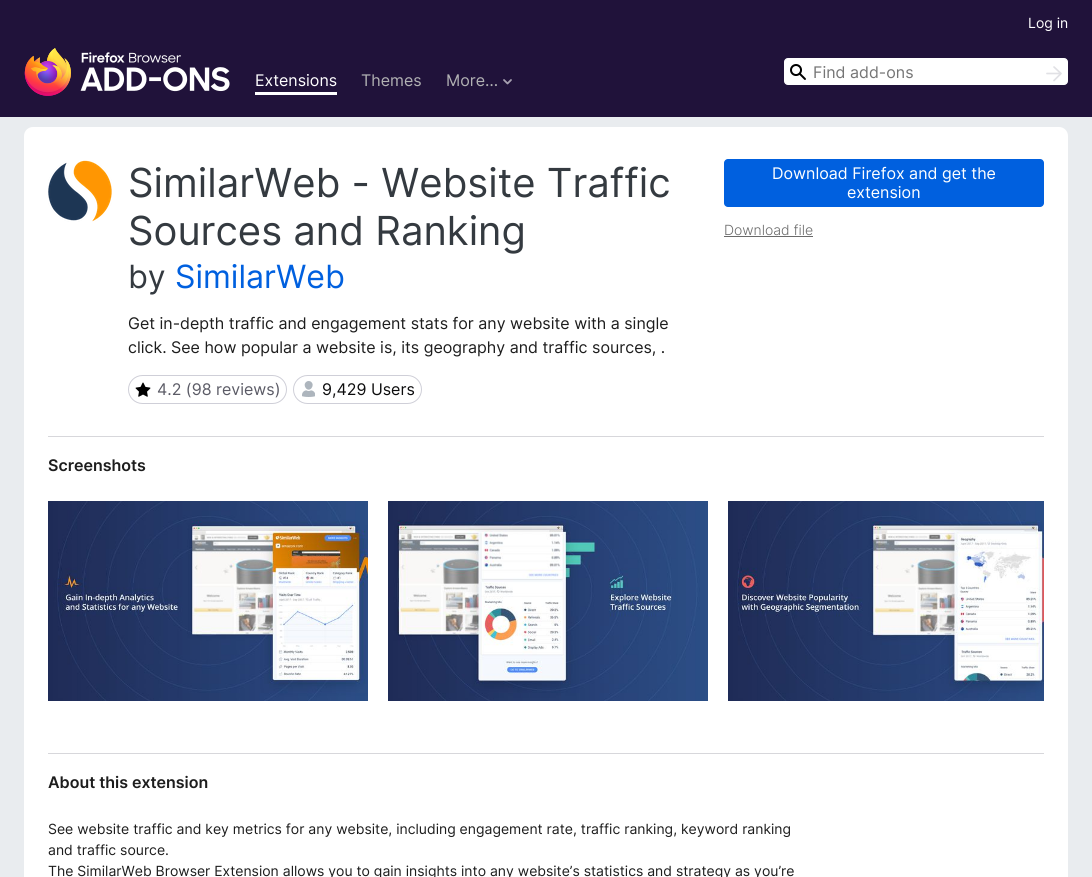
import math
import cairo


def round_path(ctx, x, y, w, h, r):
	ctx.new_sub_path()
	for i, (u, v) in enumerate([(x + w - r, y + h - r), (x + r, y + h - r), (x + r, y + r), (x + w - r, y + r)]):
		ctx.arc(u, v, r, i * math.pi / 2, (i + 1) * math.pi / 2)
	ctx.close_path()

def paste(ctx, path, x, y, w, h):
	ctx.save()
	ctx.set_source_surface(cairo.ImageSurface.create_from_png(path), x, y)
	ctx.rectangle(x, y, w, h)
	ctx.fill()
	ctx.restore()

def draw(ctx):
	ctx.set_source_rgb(0.125, 0.071, 0.227)
	ctx.paint()
	ctx.select_font_face('Inter')
	ctx.set_font_size(14)
	ctx.set_source_rgb(1, 1, 1)
	ctx.move_to(1028, 28)
	ctx.show_text('Log in')
	paste(ctx, 'media/1.png', 24, 48, 206, 48)
	round_path(ctx, 784.5, 58.5, 283, 26, 3.5)
	ctx.fill_preserve()
	ctx.set_line_width(1)
	ctx.stroke()
	paste(ctx, 'media/2.png', 790, 64, 16, 16)
	ctx.set_font_size(16)
	ctx.set_source_rgb(0.459, 0.459, 0.459)
	ctx.move_to(813, 78)
	ctx.show_text('Find add-ons')
	ctx.new_path()
	ctx.move_to(1047, 73.5)
	ctx.line_to(1060, 73.5)
	ctx.move_to(1054, 67)
	ctx.line_to(1061, 73.5)
	ctx.line_to(1054, 80.5)
	ctx.set_source_rgb(0.882, 0.882, 0.898)
	ctx.set_line_width(1.7)
	ctx.set_line_cap(cairo.LINE_CAP_ROUND)
	ctx.set_line_join(cairo.LINE_JOIN_ROUND)
	ctx.stroke()
	ctx.set_source_rgb(1, 1, 1)
	ctx.move_to(255, 86)
	ctx.show_text('Extensions')
	ctx.rectangle(255, 92, 82, 3)
	ctx.fill()
	ctx.set_source_rgb(0.694, 0.694, 0.702)
	ctx.move_to(361, 86)
	ctx.show_text('Themes')
	ctx.move_to(446, 86)
	ctx.show_text('More…')
	ctx.new_path()
	ctx.move_to(511, 80)
	ctx.line_to(507.5, 83.5)
	ctx.line_to(504, 80)
	ctx.set_source_rgb(0.651, 0.627, 0.69)
	ctx.set_line_width(1.8)
	ctx.stroke()
	ctx.set_source_rgb(0.914, 0.925, 0.937)
	ctx.rectangle(0, 117, 1092, 760)
	ctx.fill()
	ctx.set_source_rgb(1, 1, 1)
	round_path(ctx, 24, 127, 1044, 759, 9)
	ctx.fill()
	paste(ctx, 'media/3.png', 48, 160, 64, 62)
	ctx.set_font_size(40)
	ctx.set_source_rgb(0.204, 0.227, 0.251)
	ctx.move_to(128, 197)
	ctx.show_text('SimilarWeb - Website Traffic')
	ctx.move_to(128, 245)
	ctx.show_text('Sources and Ranking')
	ctx.set_font_size(32)
	ctx.move_to(128, 288)
	ctx.show_text('by')
	ctx.set_source_rgb(0, 0.376, 0.875)
	ctx.move_to(175, 288)
	ctx.show_text('SimilarWeb')
	ctx.set_font_size(16)
	ctx.set_source_rgb(0.114, 0.114, 0.114)
	ctx.move_to(128, 329)
	ctx.show_text('Get in-depth traffic and engagement stats for any website with a single')
	ctx.move_to(128, 353)
	ctx.show_text('click. See how popular a website is, its geography and traffic sources, .')
	ctx.set_source_rgb(0, 0.376, 0.875)
	round_path(ctx, 724, 159, 320, 48, 4)
	ctx.fill()
	ctx.set_source_rgb(1, 1, 1)
	ctx.move_to(772, 179)
	ctx.show_text('Download Firefox and get the')
	ctx.move_to(847, 198)
	ctx.show_text('extension')
	ctx.select_font_face('Inter Light')
	ctx.set_font_size(14)
	ctx.set_source_rgb(0.416, 0.416, 0.416)
	ctx.move_to(724, 235)
	ctx.show_text('Download file')
	ctx.rectangle(724, 236, 89, 1)
	ctx.fill()
	round_path(ctx, 128.5, 375.5, 158, 28, 14)
	ctx.set_source_rgb(0.812, 0.812, 0.847)
	ctx.set_line_width(1)
	ctx.set_line_cap(cairo.LINE_CAP_BUTT)
	ctx.set_line_join(cairo.LINE_JOIN_MITER)
	ctx.stroke()
	paste(ctx, 'media/4.png', 135, 382, 16, 15)
	ctx.select_font_face('Inter')
	ctx.set_font_size(16)
	ctx.set_source_rgb(0.357, 0.357, 0.4)
	ctx.move_to(157, 395)
	ctx.show_text('4.2 (98 reviews)')
	round_path(ctx, 293.5, 375.5, 128, 28, 14)
	ctx.set_source_rgb(0.812, 0.812, 0.847)
	ctx.stroke()
	paste(ctx, 'media/5.png', 302, 381, 13, 16)
	ctx.set_source_rgb(0.047, 0.047, 0.051)
	ctx.move_to(322, 395)
	ctx.show_text('9,429 Users')
	ctx.set_source_rgb(0.843, 0.843, 0.859)
	ctx.rectangle(48, 436, 996, 1)
	ctx.fill()
	ctx.select_font_face('Inter SemiBold')
	ctx.set_source_rgb(0.114, 0.114, 0.114)
	ctx.move_to(48, 471)
	ctx.show_text('Screenshots')
	paste(ctx, 'media/6.png', 48, 501, 320, 200)
	paste(ctx, 'media/7.png', 388, 501, 320, 200)
	paste(ctx, 'media/8.png', 728, 501, 316, 200)
	ctx.set_source_rgb(0.843, 0.843, 0.859)
	ctx.rectangle(48, 753, 996, 1)
	ctx.fill()
	ctx.set_source_rgb(0.114, 0.114, 0.114)
	ctx.move_to(48, 788)
	ctx.show_text('About this extension')
	ctx.select_font_face('Inter')
	ctx.set_font_size(14)
	for x, y, s in [
		(48, 834, 'See website traffic and key metrics for any website, including engagement rate, traffic ranking, keyword ranking'),
		(48, 855, 'and traffic source.'),
		(48, 876, 'The SimilarWeb Browser Extension allows you to gain insights into any website’s statistics and strategy as you’re'),
	]:
		ctx.move_to(x, y)
		ctx.show_text(s)


surface = cairo.ImageSurface(cairo.FORMAT_RGB24, 1092, 877)
ctx = cairo.Context(surface)
options = cairo.FontOptions()
options.set_hint_metrics(cairo.HINT_METRICS_OFF)
options.set_hint_style(cairo.HINT_STYLE_NONE)
ctx.set_font_options(options)
ctx.set_miter_limit(4)
draw(ctx)
surface.write_to_png('image.png')
